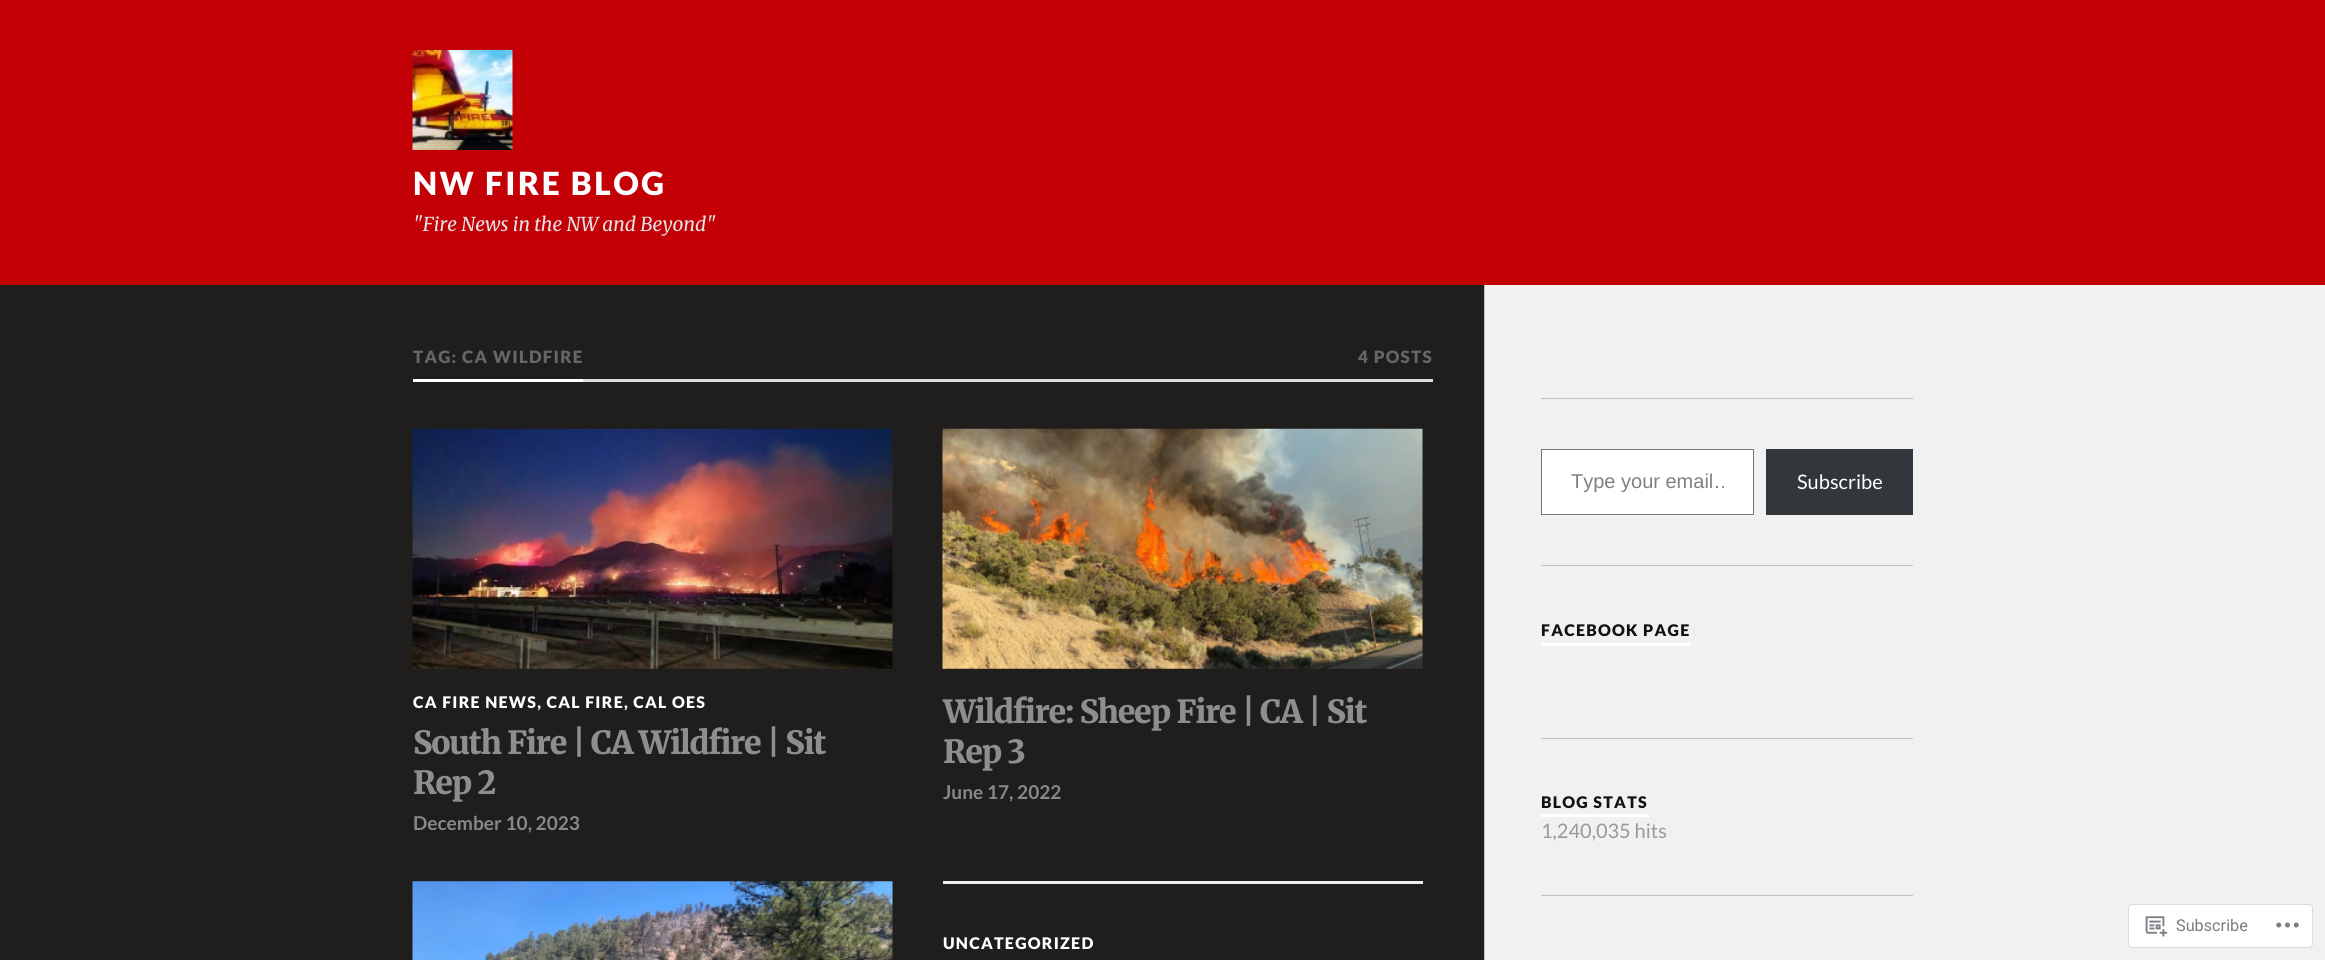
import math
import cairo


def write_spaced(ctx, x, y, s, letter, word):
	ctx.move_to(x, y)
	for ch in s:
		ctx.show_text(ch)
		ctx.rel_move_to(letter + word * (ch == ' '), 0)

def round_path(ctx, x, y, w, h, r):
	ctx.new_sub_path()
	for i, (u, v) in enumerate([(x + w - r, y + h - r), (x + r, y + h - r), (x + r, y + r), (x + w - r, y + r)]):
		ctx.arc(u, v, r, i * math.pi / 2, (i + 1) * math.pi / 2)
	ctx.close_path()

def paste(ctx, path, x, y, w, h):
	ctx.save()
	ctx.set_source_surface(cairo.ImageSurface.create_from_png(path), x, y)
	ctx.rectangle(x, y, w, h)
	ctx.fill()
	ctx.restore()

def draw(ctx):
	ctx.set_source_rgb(0.945, 0.945, 0.945)
	ctx.paint()
	ctx.set_source_rgb(0.761, 0, 0.02)
	ctx.rectangle(0, 0, 2325, 285)
	ctx.fill()
	paste(ctx, 'media/1.png', 412, 50, 101, 100)
	ctx.select_font_face('Lato Black')
	ctx.set_font_size(31.9)
	ctx.set_source_rgb(1, 1, 1)
	write_spaced(ctx, 413, 195, 'NW FIRE BLOG', 2.5, 0)
	ctx.select_font_face('Merriweather Light', cairo.FONT_SLANT_ITALIC)
	ctx.set_font_size(19.1)
	ctx.set_source_rgb(0.898, 0.898, 0.898)
	ctx.move_to(413, 231)
	ctx.show_text('"Fire News in the NW and Beyond"')
	ctx.set_source_rgb(0.122, 0.118, 0.114)
	ctx.rectangle(0, 285, 1484, 675)
	ctx.fill()
	ctx.set_source_rgb(0.867, 0.867, 0.867)
	ctx.rectangle(583, 379, 850, 3)
	ctx.fill()
	ctx.set_source_rgb(1, 1, 1)
	ctx.rectangle(413, 379, 170, 3)
	ctx.fill()
	ctx.select_font_face('Lato Black')
	ctx.set_font_size(17)
	ctx.set_source_rgb(0.4, 0.4, 0.4)
	write_spaced(ctx, 413, 363, 'TAG: CA WILDFIRE', 1.25, 0)
	write_spaced(ctx, 1358, 363, '4 POSTS', 1.25, 0)
	ctx.set_source_rgb(0.133, 0.133, 0.133)
	ctx.rectangle(413, 429, 480, 240)
	ctx.fill()
	paste(ctx, 'media/2.png', 412, 428, 481, 241)
	ctx.set_font_size(16)
	ctx.set_source_rgb(1, 1, 1)
	write_spaced(ctx, 413, 708, 'CA FIRE NEWS, CAL FIRE, CAL OES', 1.25, 0)
	ctx.select_font_face('Merriweather Black')
	ctx.set_font_size(31.9)
	ctx.set_source_rgb(0.557, 0.557, 0.557)
	write_spaced(ctx, 413, 754, 'South Fire | CA Wildfire | Sit', -1.25, 0)
	write_spaced(ctx, 413, 794, 'Rep 2', -1.25, 0)
	ctx.select_font_face('Lato', cairo.FONT_SLANT_NORMAL, cairo.FONT_WEIGHT_BOLD)
	ctx.set_font_size(19.1)
	ctx.set_source_rgb(0.533, 0.533, 0.533)
	ctx.move_to(413, 830)
	ctx.show_text('December 10, 2023')
	ctx.set_source_rgb(0.133, 0.133, 0.133)
	ctx.rectangle(943, 429, 480, 240)
	ctx.fill()
	paste(ctx, 'media/3.png', 942, 428, 481, 241)
	ctx.select_font_face('Merriweather Black')
	ctx.set_font_size(31.9)
	ctx.set_source_rgb(0.557, 0.557, 0.557)
	write_spaced(ctx, 943, 723, 'Wildfire: Sheep Fire | CA | Sit', -1.25, 0)
	write_spaced(ctx, 943, 763, 'Rep 3', -1.25, 0)
	ctx.select_font_face('Lato', cairo.FONT_SLANT_NORMAL, cairo.FONT_WEIGHT_BOLD)
	ctx.set_font_size(19.1)
	ctx.set_source_rgb(0.533, 0.533, 0.533)
	ctx.move_to(943, 799)
	ctx.show_text('June 17, 2022')
	ctx.set_source_rgb(0.133, 0.133, 0.133)
	ctx.rectangle(413, 881, 480, 79)
	ctx.fill()
	paste(ctx, 'media/4.png', 412, 881, 481, 79)
	ctx.set_source_rgb(0.933, 0.933, 0.933)
	ctx.rectangle(943, 881, 480, 3)
	ctx.fill()
	ctx.select_font_face('Lato Black')
	ctx.set_font_size(16)
	ctx.set_source_rgb(1, 1, 1)
	write_spaced(ctx, 943, 949, 'UNCATEGORIZED', 1.25, 0)
	ctx.set_source_rgb(0.757, 0.757, 0.757)
	ctx.rectangle(1484, 285, 1, 675)
	ctx.fill()
	ctx.rectangle(1541, 398, 372, 1)
	ctx.fill()
	ctx.set_source_rgb(1, 1, 1)
	ctx.rectangle(1541.5, 449.5, 212, 65)
	ctx.fill_preserve()
	ctx.set_source_rgb(0.463, 0.463, 0.463)
	ctx.set_line_width(1)
	ctx.stroke()
	ctx.save()
	ctx.rectangle(1571, 470, 153, 23)
	ctx.clip()
	ctx.select_font_face('Liberation Sans')
	ctx.set_font_size(20)
	ctx.set_source_rgb(0.502, 0.502, 0.502)
	ctx.move_to(1571, 488)
	ctx.show_text('Type your email…')
	ctx.restore()
	ctx.set_source_rgb(0.196, 0.216, 0.235)
	ctx.rectangle(1766, 449, 147, 66)
	ctx.fill()
	ctx.select_font_face('Lato')
	ctx.set_font_size(20)
	ctx.set_source_rgb(1, 1, 1)
	ctx.move_to(1797, 489)
	ctx.show_text('Subscribe')
	ctx.set_source_rgb(0.757, 0.757, 0.757)
	ctx.rectangle(1541, 565, 372, 1)
	ctx.fill()
	ctx.set_source_rgb(1, 1, 1)
	ctx.rectangle(1541, 643, 150, 3)
	ctx.fill()
	ctx.select_font_face('Lato Black')
	ctx.set_font_size(16)
	ctx.set_source_rgb(0.067, 0.067, 0.067)
	write_spaced(ctx, 1541, 636, 'FACEBOOK PAGE', 1.25, 0)
	ctx.set_source_rgb(0.757, 0.757, 0.757)
	ctx.rectangle(1541, 738, 372, 1)
	ctx.fill()
	ctx.set_source_rgb(1, 1, 1)
	ctx.rectangle(1541, 814, 108, 3)
	ctx.fill()
	ctx.set_source_rgb(0.067, 0.067, 0.067)
	write_spaced(ctx, 1541, 808, 'BLOG STATS', 1.25, 0)
	ctx.select_font_face('Lato')
	ctx.set_font_size(20)
	ctx.set_source_rgb(0.6, 0.6, 0.6)
	ctx.move_to(1541, 838)
	ctx.show_text('1,240,035 hits')
	ctx.set_source_rgb(0.757, 0.757, 0.757)
	ctx.rectangle(1541, 895, 372, 1)
	ctx.fill()
	ctx.set_source_rgb(1, 1, 1)
	round_path(ctx, 2128.5, 904.5, 184, 43, 3.5)
	ctx.fill_preserve()
	ctx.set_source_rgb(0.863, 0.863, 0.871)
	ctx.stroke()
	paste(ctx, 'media/5.png', 2145, 916, 23, 21)
	ctx.select_font_face('Roboto')
	ctx.set_font_size(16.25)
	ctx.set_source_rgb(0.478, 0.494, 0.518)
	ctx.move_to(2176, 931)
	ctx.show_text('Subscribe')
	paste(ctx, 'media/6.png', 2276, 922, 23, 6)


surface = cairo.ImageSurface(cairo.FORMAT_RGB24, 2325, 960)
ctx = cairo.Context(surface)
options = cairo.FontOptions()
options.set_hint_metrics(cairo.HINT_METRICS_OFF)
options.set_hint_style(cairo.HINT_STYLE_NONE)
ctx.set_font_options(options)
ctx.set_miter_limit(4)
draw(ctx)
surface.write_to_png('image.png')
